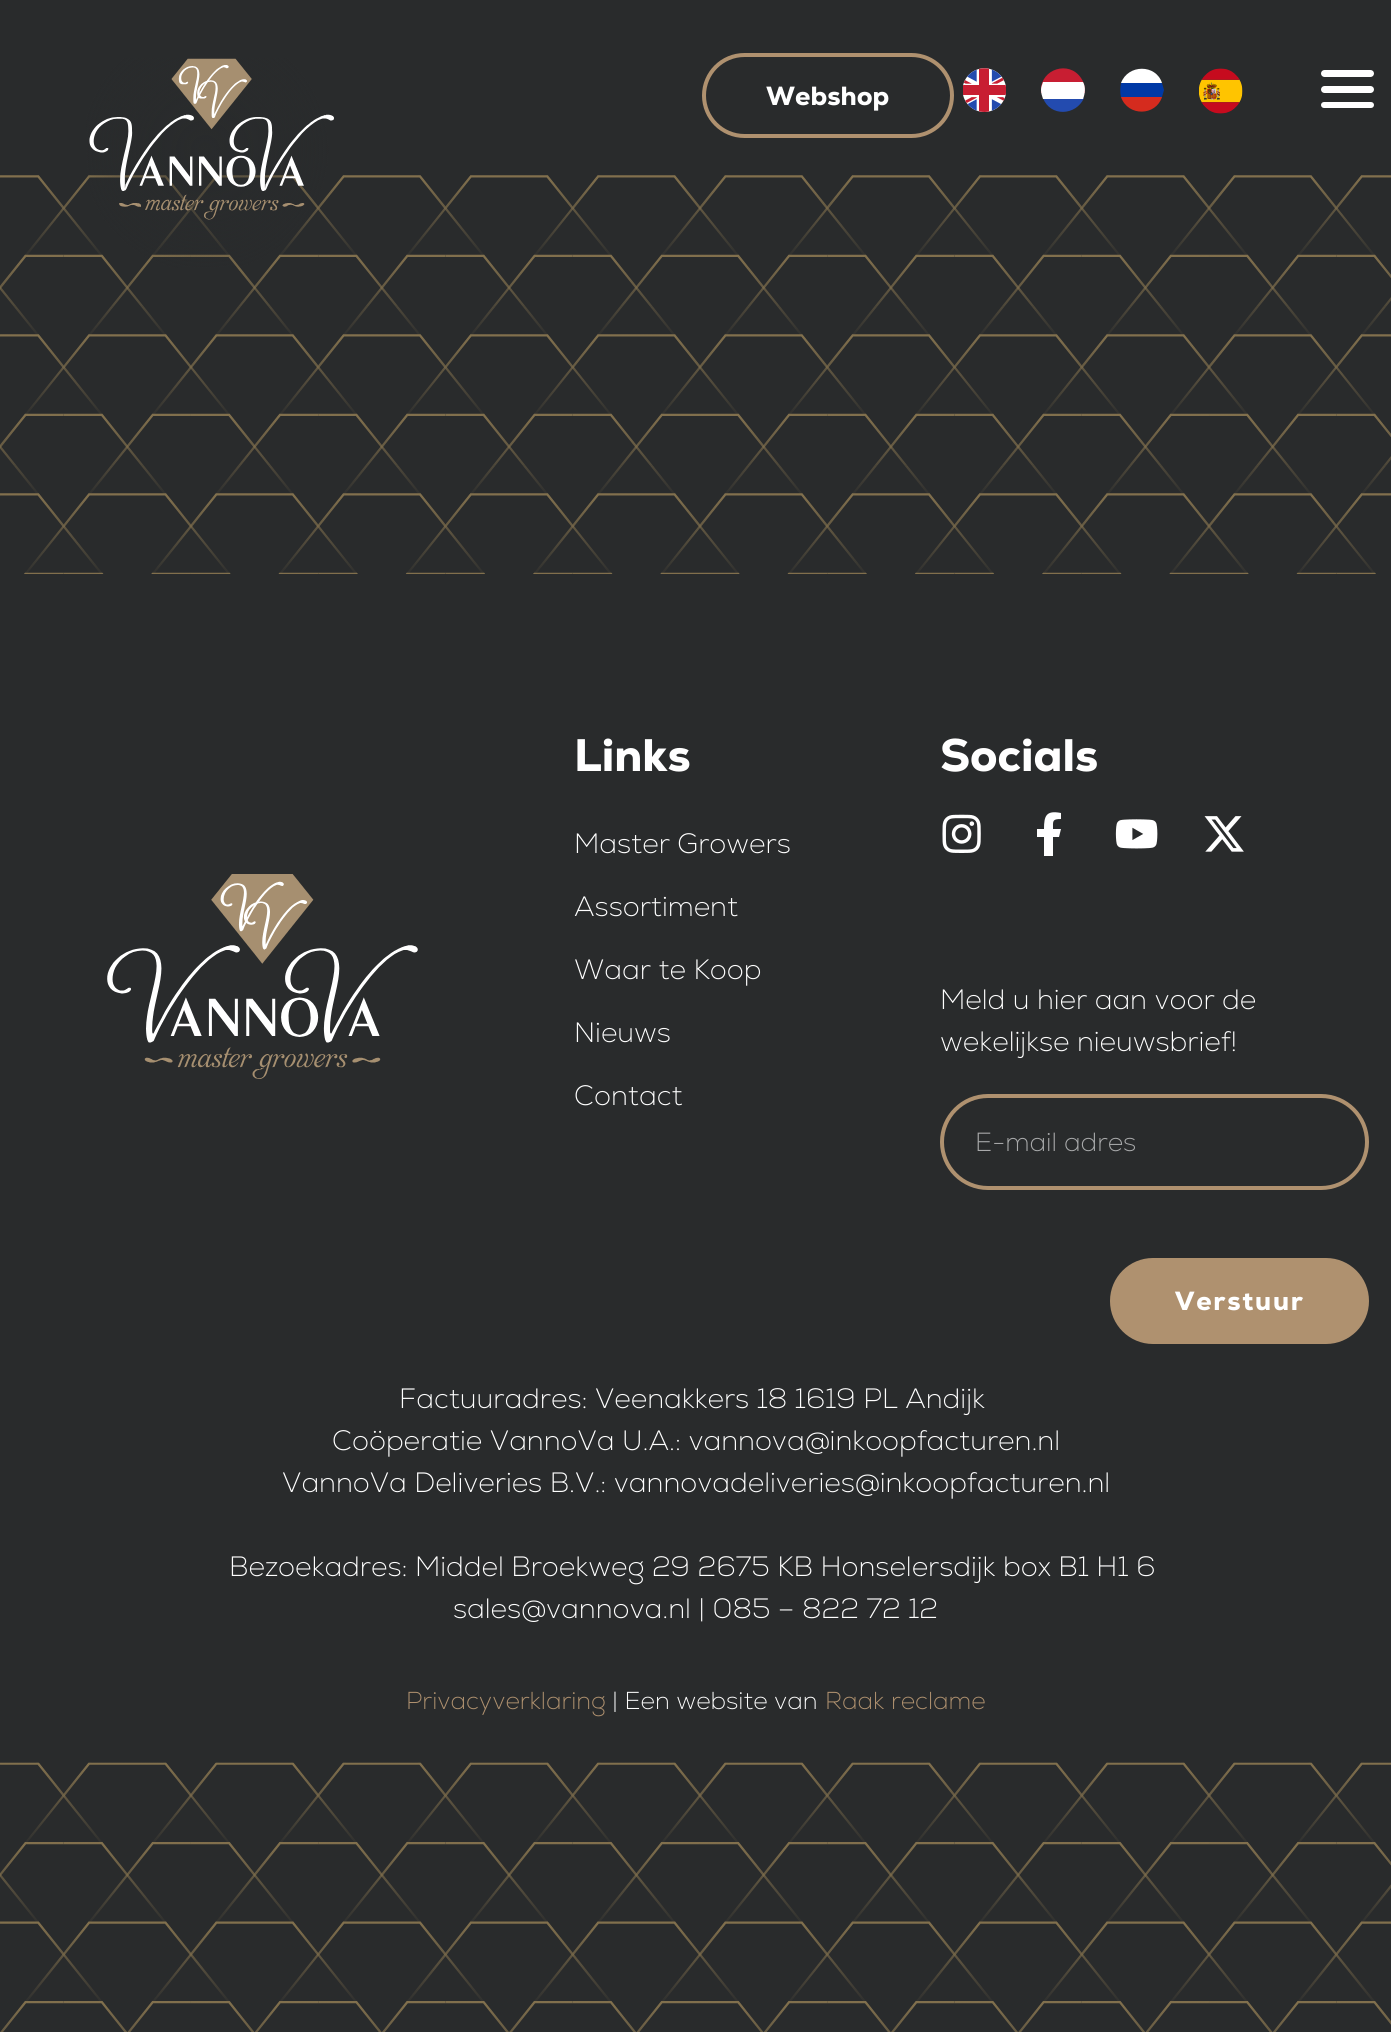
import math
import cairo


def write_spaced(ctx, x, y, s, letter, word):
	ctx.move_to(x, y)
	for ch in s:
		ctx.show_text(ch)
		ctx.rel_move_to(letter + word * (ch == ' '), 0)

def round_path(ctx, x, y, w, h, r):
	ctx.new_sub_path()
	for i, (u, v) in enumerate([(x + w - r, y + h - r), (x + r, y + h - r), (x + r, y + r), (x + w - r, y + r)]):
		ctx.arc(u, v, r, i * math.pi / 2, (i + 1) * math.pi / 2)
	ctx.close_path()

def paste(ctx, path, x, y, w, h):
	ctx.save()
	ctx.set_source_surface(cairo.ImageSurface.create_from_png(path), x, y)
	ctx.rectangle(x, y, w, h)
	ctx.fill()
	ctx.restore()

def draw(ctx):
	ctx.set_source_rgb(0.161, 0.169, 0.173)
	ctx.paint()
	paste(ctx, 'media/1.png', 0, 175, 1391, 399)
	paste(ctx, 'media/2.png', 86, 58, 248, 210)
	round_path(ctx, 704, 55, 248, 81, 40.5)
	ctx.set_source_rgb(0.686, 0.569, 0.435)
	ctx.set_line_width(4)
	ctx.stroke()
	ctx.select_font_face('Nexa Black')
	ctx.set_font_size(26.25)
	ctx.set_source_rgb(1, 1, 1)
	ctx.move_to(766, 105)
	ctx.show_text('Webshop')
	paste(ctx, 'media/3.png', 963, 68, 43, 44)
	ctx.set_source_rgb(0.784, 0.118, 0.196)
	ctx.new_path()
	ctx.move_to(1041, 90)
	ctx.curve_to(1041, 69, 1069, 60, 1081, 78)
	ctx.curve_to(1084, 82, 1085, 88, 1085, 93)
	ctx.line_to(1041, 93)
	ctx.close_path()
	ctx.fill()
	ctx.set_source_rgb(0.137, 0.294, 0.686)
	ctx.new_path()
	ctx.move_to(1084, 98)
	ctx.line_to(1043, 98)
	ctx.curve_to(1050, 117, 1076, 116, 1084, 98)
	ctx.close_path()
	ctx.fill()
	ctx.set_source_rgb(1, 1, 1)
	ctx.new_path()
	ctx.move_to(1041, 90)
	ctx.curve_to(1041, 87, 1042, 85, 1043, 82)
	ctx.line_to(1083, 82)
	ctx.curve_to(1086, 87, 1085, 94, 1083, 99)
	ctx.line_to(1043, 99)
	ctx.curve_to(1042, 96, 1041, 93, 1041, 90)
	ctx.close_path()
	ctx.fill()
	ctx.set_source_rgb(0, 0.224, 0.651)
	ctx.new_path()
	ctx.move_to(1164, 90)
	ctx.line_to(1162, 97)
	ctx.line_to(1121, 97)
	ctx.curve_to(1120, 93, 1120, 88, 1121, 83)
	ctx.line_to(1162, 83)
	ctx.close_path()
	ctx.fill()
	ctx.set_source_rgb(1, 1, 1)
	ctx.new_path()
	ctx.move_to(1162, 83)
	ctx.line_to(1121, 83)
	ctx.curve_to(1128, 64, 1156, 64, 1162, 83)
	ctx.close_path()
	ctx.fill()
	ctx.set_source_rgb(0.835, 0.169, 0.118)
	ctx.new_path()
	ctx.move_to(1162, 97)
	ctx.curve_to(1156, 116, 1128, 117, 1121, 97)
	ctx.close_path()
	ctx.fill()
	paste(ctx, 'media/4.png', 1199, 68, 44, 46)
	ctx.set_source_rgb(1, 1, 1)
	round_path(ctx, 1321, 70, 53, 7, 3.5)
	ctx.fill()
	round_path(ctx, 1321, 86, 53, 7, 3.5)
	ctx.fill()
	round_path(ctx, 1321, 102, 53, 6, 3)
	ctx.fill()
	paste(ctx, 'media/5.png', 107, 874, 311, 205)
	ctx.set_font_size(45.5)
	ctx.move_to(574, 771)
	ctx.show_text('Links')
	ctx.select_font_face('Nexa ExtraLight')
	ctx.set_font_size(28)
	for x, y, s in [
		(574, 853, 'Master Growers'),
		(574, 916, 'Assortiment'),
		(574, 979, 'Waar te Koop'),
		(574, 1042, 'Nieuws'),
		(574, 1105, 'Contact'),
	]:
		ctx.move_to(x, y)
		ctx.show_text(s)
	ctx.select_font_face('Nexa Black')
	ctx.set_font_size(45.5)
	ctx.move_to(940, 771)
	ctx.show_text('Socials')
	paste(ctx, 'media/6.png', 942, 814, 39, 39)
	ctx.new_path()
	ctx.move_to(1059, 837)
	ctx.line_to(1061, 829)
	ctx.line_to(1053, 829)
	ctx.curve_to(1053, 821, 1052, 819, 1061, 819)
	ctx.line_to(1061, 813)
	ctx.curve_to(1046, 810, 1044, 816, 1044, 829)
	ctx.line_to(1037, 829)
	ctx.line_to(1037, 837)
	ctx.line_to(1044, 837)
	ctx.line_to(1044, 856)
	ctx.line_to(1053, 856)
	ctx.line_to(1053, 837)
	ctx.close_path()
	ctx.fill()
	paste(ctx, 'media/7.png', 1115, 819, 43, 30)
	paste(ctx, 'media/8.png', 1204, 816, 40, 36)
	ctx.select_font_face('Nexa ExtraLight')
	ctx.set_font_size(28)
	ctx.move_to(940, 1009)
	ctx.show_text('Meld u hier aan voor de')
	ctx.move_to(940, 1051)
	ctx.show_text('wekelijkse nieuwsbrief!')
	round_path(ctx, 942, 1096, 425, 92, 46)
	ctx.set_source_rgb(0.686, 0.569, 0.435)
	ctx.stroke()
	ctx.set_font_size(26.25)
	ctx.set_source_rgb(0.663, 0.667, 0.671)
	ctx.move_to(975, 1151)
	ctx.show_text('E-mail adres')
	ctx.set_source_rgb(0.686, 0.569, 0.435)
	round_path(ctx, 1112, 1260, 255, 82, 41)
	ctx.fill_preserve()
	ctx.stroke()
	ctx.select_font_face('Nexa Black')
	ctx.set_source_rgb(1, 1, 1)
	write_spaced(ctx, 1175, 1310, 'Verstuur', 1.75, 0)
	ctx.select_font_face('Nexa ExtraLight')
	ctx.set_font_size(28)
	for x, y, s in [
		(399, 1408, 'Factuuradres: Veenakkers 18 1619 PL Andijk'),
		(332, 1450, 'Coöperatie VannoVa U.A.: vannova@inkoopfacturen.nl'),
		(282, 1492, 'VannoVa Deliveries B.V.: vannovadeliveries@inkoopfacturen.nl'),
		(229, 1576, 'Bezoekadres: Middel Broekweg 29 2675 KB Honselersdijk box B1 H1 6'),
		(453, 1618, 'sales@vannova.nl | 085 – 822 72 12'),
	]:
		ctx.move_to(x, y)
		ctx.show_text(s)
	ctx.set_font_size(24.5)
	ctx.set_source_rgb(0.686, 0.569, 0.435)
	ctx.move_to(406, 1709)
	ctx.show_text('Privacyverklaring')
	ctx.set_source_rgb(1, 1, 1)
	ctx.move_to(612, 1709)
	ctx.show_text('| Een website van')
	ctx.set_source_rgb(0.686, 0.569, 0.435)
	ctx.move_to(825, 1709)
	ctx.show_text('Raak reclame')
	paste(ctx, 'media/9.png', 0, 1762, 1391, 270)


surface = cairo.ImageSurface(cairo.FORMAT_RGB24, 1391, 2032)
ctx = cairo.Context(surface)
options = cairo.FontOptions()
options.set_hint_metrics(cairo.HINT_METRICS_OFF)
options.set_hint_style(cairo.HINT_STYLE_NONE)
ctx.set_font_options(options)
ctx.set_miter_limit(4)
draw(ctx)
surface.write_to_png('image.png')
